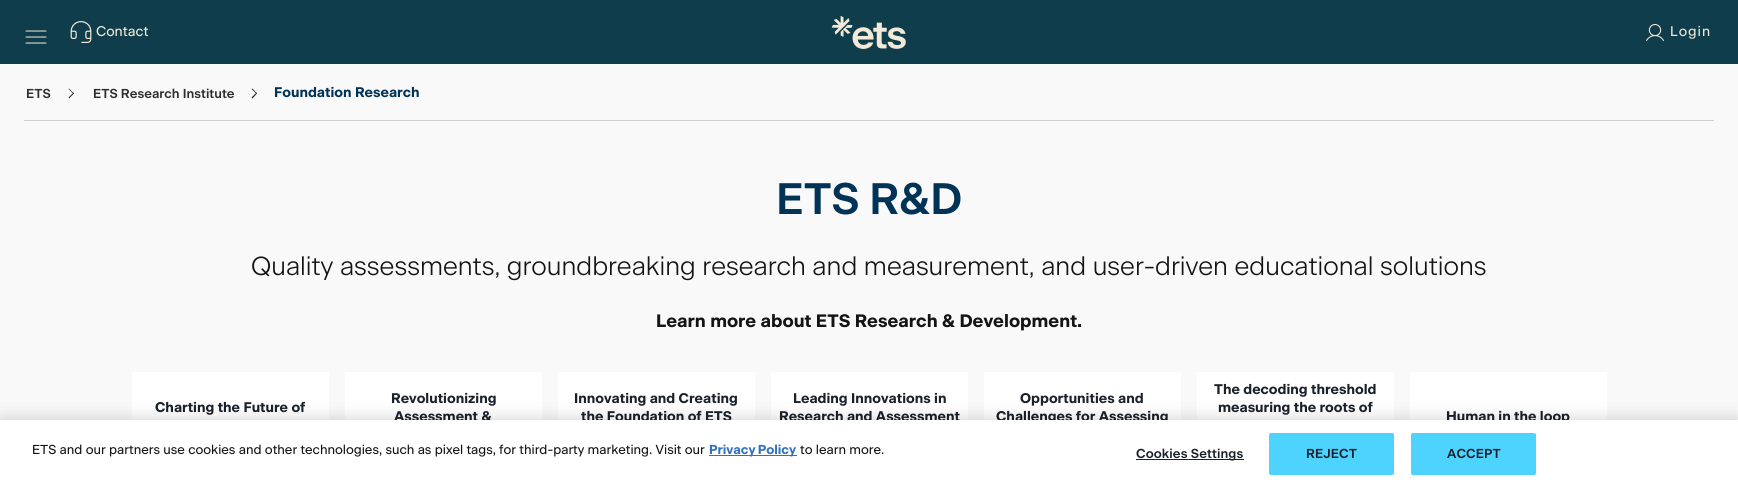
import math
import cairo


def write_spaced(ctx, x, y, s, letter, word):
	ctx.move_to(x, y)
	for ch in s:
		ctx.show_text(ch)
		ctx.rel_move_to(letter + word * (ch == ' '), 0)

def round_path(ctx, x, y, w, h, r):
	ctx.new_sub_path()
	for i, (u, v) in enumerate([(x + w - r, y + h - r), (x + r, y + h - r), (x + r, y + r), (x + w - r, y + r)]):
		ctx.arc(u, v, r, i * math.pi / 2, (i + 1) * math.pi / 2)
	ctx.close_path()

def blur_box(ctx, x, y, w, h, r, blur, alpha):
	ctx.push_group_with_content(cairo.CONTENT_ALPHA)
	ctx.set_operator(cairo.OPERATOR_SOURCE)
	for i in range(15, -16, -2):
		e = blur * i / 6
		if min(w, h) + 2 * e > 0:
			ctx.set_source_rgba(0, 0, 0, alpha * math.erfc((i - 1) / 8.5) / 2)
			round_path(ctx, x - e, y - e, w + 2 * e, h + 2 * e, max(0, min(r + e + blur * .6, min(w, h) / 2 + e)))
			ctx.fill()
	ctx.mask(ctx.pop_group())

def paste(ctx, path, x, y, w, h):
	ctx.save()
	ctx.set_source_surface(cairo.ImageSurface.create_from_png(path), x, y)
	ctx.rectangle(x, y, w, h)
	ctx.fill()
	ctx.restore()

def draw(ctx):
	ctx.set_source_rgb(0.973, 0.973, 0.973)
	ctx.paint()
	ctx.set_source_rgb(0.063, 0.239, 0.294)
	ctx.rectangle(0, 0, 1738, 64)
	ctx.fill()
	paste(ctx, 'media/1.png', 25, 30, 22, 14)
	paste(ctx, 'media/2.png', 70, 21, 22, 22)
	ctx.select_font_face('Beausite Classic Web')
	ctx.set_font_size(14)
	ctx.set_source_rgb(0.949, 0.914, 0.847)
	ctx.move_to(96, 36)
	ctx.show_text('Contact')
	paste(ctx, 'media/3.png', 831, 16, 75, 33)
	paste(ctx, 'media/4.png', 1646, 24, 18, 17)
	write_spaced(ctx, 1670, 36, 'Login', 1, 0)
	ctx.set_source_rgb(0.816, 0.816, 0.816)
	ctx.rectangle(24, 120, 1690, 1)
	ctx.fill()
	ctx.select_font_face('Beausite Classic Web SemiBold')
	ctx.set_font_size(13)
	ctx.set_source_rgb(0.18, 0.18, 0.18)
	ctx.move_to(26, 98)
	ctx.show_text('ETS')
	ctx.new_path()
	ctx.move_to(68.5, 89)
	ctx.line_to(69, 88.5)
	ctx.line_to(74, 93.5)
	ctx.line_to(73.5, 94)
	ctx.close_path()
	ctx.fill()
	ctx.new_path()
	ctx.move_to(68.5, 97.5)
	ctx.line_to(73.5, 92.5)
	ctx.line_to(74, 93.5)
	ctx.line_to(69, 98.5)
	ctx.close_path()
	ctx.fill()
	ctx.move_to(93, 98)
	ctx.show_text('ETS Research Institute')
	ctx.new_path()
	ctx.move_to(251.5, 89)
	ctx.line_to(252.5, 88.5)
	ctx.line_to(257, 93.5)
	ctx.line_to(256.5, 94)
	ctx.close_path()
	ctx.fill()
	ctx.new_path()
	ctx.move_to(251.5, 97.5)
	ctx.line_to(256.5, 92.5)
	ctx.line_to(257, 93.5)
	ctx.line_to(252.5, 98.5)
	ctx.close_path()
	ctx.fill()
	ctx.select_font_face('Beausite Classic Web', cairo.FONT_SLANT_NORMAL, cairo.FONT_WEIGHT_BOLD)
	ctx.set_font_size(14)
	ctx.set_source_rgb(0, 0.2, 0.337)
	ctx.move_to(274, 97)
	ctx.show_text('Foundation Research')
	ctx.select_font_face('Beausite Classic Web SemiBold')
	ctx.set_font_size(44)
	write_spaced(ctx, 776, 214, 'ETS R&D', 0, -1)
	ctx.select_font_face('Beausite Classic Web Light')
	ctx.set_font_size(26)
	ctx.set_source_rgb(0.082, 0.082, 0.082)
	write_spaced(ctx, 251, 275, 'Quality assessments, groundbreaking research and measurement, and user-driven educational solutions', 0, -0.25)
	ctx.select_font_face('Beausite Classic Web', cairo.FONT_SLANT_NORMAL, cairo.FONT_WEIGHT_BOLD)
	ctx.set_font_size(18)
	ctx.move_to(656, 327)
	ctx.show_text('Learn more about ETS Research & Development.')
	ctx.set_source_rgb(1, 1, 1)
	ctx.rectangle(132, 372, 197, 48)
	ctx.fill()
	ctx.set_font_size(14)
	ctx.set_source_rgb(0.102, 0.129, 0.169)
	ctx.move_to(155, 412)
	ctx.show_text('Charting the Future of')
	ctx.set_source_rgb(1, 1, 1)
	ctx.rectangle(345, 372, 197, 48)
	ctx.fill()
	ctx.set_source_rgb(0.102, 0.129, 0.169)
	ctx.move_to(391, 403)
	ctx.show_text('Revolutionizing')
	ctx.move_to(394, 421)
	ctx.show_text('Assessment &')
	ctx.set_source_rgb(1, 1, 1)
	ctx.rectangle(558, 372, 197, 48)
	ctx.fill()
	ctx.set_source_rgb(0.102, 0.129, 0.169)
	ctx.move_to(574, 403)
	ctx.show_text('Innovating and Creating')
	ctx.move_to(581, 421)
	ctx.show_text('the Foundation of ETS')
	ctx.set_source_rgb(1, 1, 1)
	ctx.rectangle(771, 372, 197, 48)
	ctx.fill()
	ctx.set_source_rgb(0.102, 0.129, 0.169)
	ctx.move_to(793, 403)
	ctx.show_text('Leading Innovations in')
	ctx.move_to(779, 421)
	ctx.show_text('Research and Assessment')
	ctx.set_source_rgb(1, 1, 1)
	ctx.rectangle(984, 372, 197, 48)
	ctx.fill()
	ctx.set_source_rgb(0.102, 0.129, 0.169)
	ctx.move_to(1020, 403)
	ctx.show_text('Opportunities and')
	ctx.move_to(996, 421)
	ctx.show_text('Challenges for Assessing')
	ctx.set_source_rgb(1, 1, 1)
	ctx.rectangle(1197, 372, 197, 48)
	ctx.fill()
	ctx.set_source_rgb(0.102, 0.129, 0.169)
	ctx.move_to(1214, 394)
	ctx.show_text('The decoding threshold')
	ctx.move_to(1218, 412)
	ctx.show_text('measuring the roots of')
	ctx.set_source_rgb(1, 1, 1)
	ctx.rectangle(1410, 372, 197, 48)
	ctx.fill()
	ctx.set_source_rgb(0.102, 0.129, 0.169)
	ctx.move_to(1446, 421)
	ctx.show_text('Human in the loop')
	ctx.set_source_rgb(0, 0, 0)
	blur_box(ctx, 0, 420, 1738, 71, 0, 9, 0.2)
	ctx.set_source_rgb(1, 1, 1)
	ctx.rectangle(0, 420, 1738, 71)
	ctx.fill()
	ctx.select_font_face('Beausite Classic Web')
	ctx.set_font_size(13)
	ctx.set_source_rgb(0.082, 0.082, 0.082)
	ctx.move_to(32, 454)
	ctx.show_text('ETS and our partners use cookies and other technologies, such as pixel tags,')
	ctx.move_to(499, 454)
	ctx.show_text('for third-party marketing. Visit our')
	ctx.set_source_rgb(0.188, 0.447, 0.745)
	ctx.rectangle(709, 455, 88, 1)
	ctx.fill()
	ctx.select_font_face('Beausite Classic Web', cairo.FONT_SLANT_NORMAL, cairo.FONT_WEIGHT_BOLD)
	write_spaced(ctx, 709, 454, 'Privacy Policy', 0, -1)
	ctx.select_font_face('Beausite Classic Web')
	ctx.set_source_rgb(0.082, 0.082, 0.082)
	ctx.move_to(800, 454)
	ctx.show_text('to learn more.')
	ctx.set_source_rgb(0.102, 0.129, 0.169)
	ctx.rectangle(1136, 459, 108, 1)
	ctx.fill()
	ctx.select_font_face('Beausite Classic Web SemiBold')
	write_spaced(ctx, 1136, 458, 'Cookies Settings', 0.1, 0)
	ctx.set_source_rgb(0.302, 0.827, 0.996)
	round_path(ctx, 1269.5, 433.5, 124, 41, 1.5)
	ctx.fill_preserve()
	ctx.set_line_width(1)
	ctx.stroke()
	ctx.set_source_rgb(0.102, 0.129, 0.169)
	write_spaced(ctx, 1306, 458, 'REJECT', 0.1, 0)
	ctx.set_source_rgb(0.302, 0.827, 0.996)
	round_path(ctx, 1411.5, 433.5, 124, 41, 1.5)
	ctx.fill_preserve()
	ctx.stroke()
	ctx.set_source_rgb(0.102, 0.129, 0.169)
	write_spaced(ctx, 1447, 458, 'ACCEPT', 0.1, 0)


surface = cairo.ImageSurface(cairo.FORMAT_RGB24, 1738, 491)
ctx = cairo.Context(surface)
options = cairo.FontOptions()
options.set_hint_metrics(cairo.HINT_METRICS_OFF)
options.set_hint_style(cairo.HINT_STYLE_NONE)
ctx.set_font_options(options)
ctx.set_miter_limit(4)
draw(ctx)
surface.write_to_png('image.png')
